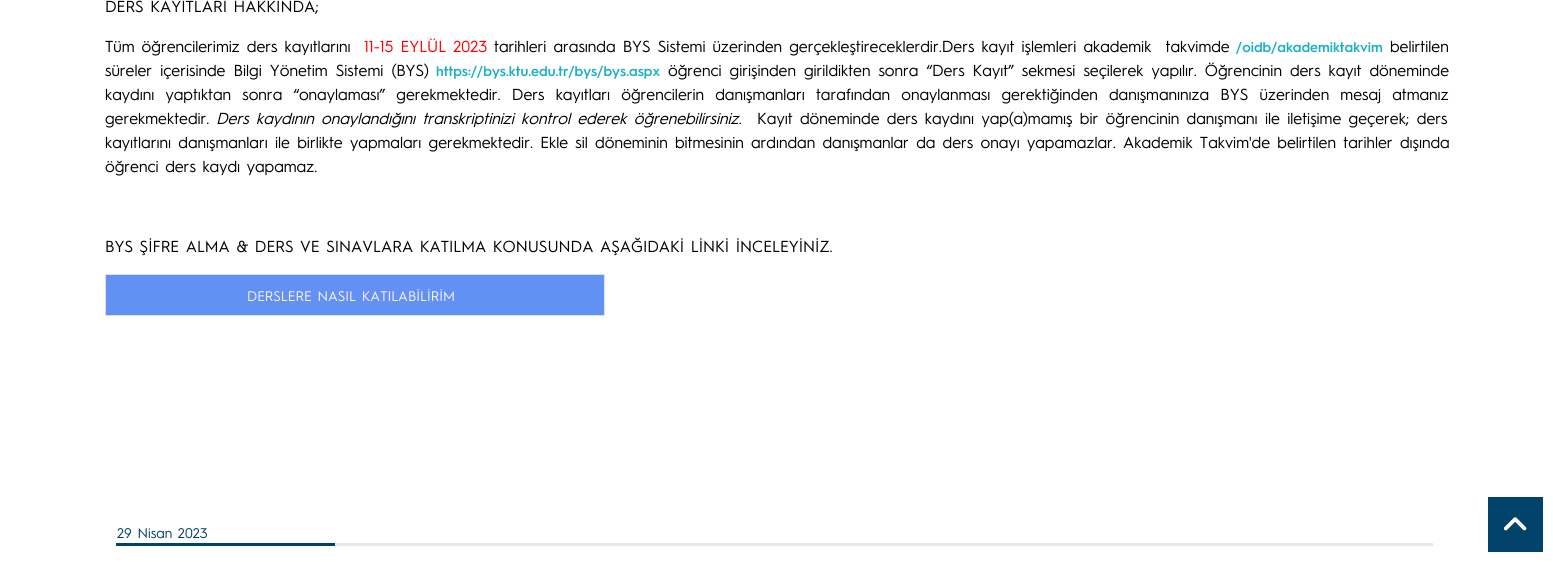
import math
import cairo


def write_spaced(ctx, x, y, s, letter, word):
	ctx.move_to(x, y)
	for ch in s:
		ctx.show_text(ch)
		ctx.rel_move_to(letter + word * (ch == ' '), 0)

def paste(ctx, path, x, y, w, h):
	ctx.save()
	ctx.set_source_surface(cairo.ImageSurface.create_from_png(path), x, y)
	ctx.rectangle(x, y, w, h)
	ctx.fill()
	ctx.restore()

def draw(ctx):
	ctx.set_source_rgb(1, 1, 1)
	ctx.paint()
	ctx.select_font_face('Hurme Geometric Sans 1')
	ctx.set_font_size(16)
	ctx.set_source_rgb(0, 0, 0)
	ctx.move_to(105, 12)
	ctx.show_text('DERS KAYITLARI HAKKINDA;')
	write_spaced(ctx, 105, 52, 'Tüm öğrencilerimiz ders kayıtlarını', 0, 0.5)
	ctx.set_source_rgb(1, 0, 0)
	write_spaced(ctx, 364, 52, '11-15 EYLÜL 2023', 0, 0.5)
	ctx.set_source_rgb(0, 0, 0)
	write_spaced(ctx, 494, 52, 'tarihleri arasında BYS Sistemi üzerinden gerçekleştireceklerdir.Ders kayıt işlemleri akademik  takvimde', 0, 0.5)
	ctx.select_font_face('Hurme Geometric Sans 1 SemiBold')
	ctx.set_font_size(14)
	ctx.set_source_rgb(0.118, 0.686, 0.78)
	ctx.move_to(1236, 52)
	ctx.show_text('/oidb/akademiktakvim')
	ctx.select_font_face('Hurme Geometric Sans 1')
	ctx.set_font_size(16)
	ctx.set_source_rgb(0, 0, 0)
	ctx.move_to(1390, 52)
	ctx.show_text('belirtilen')
	write_spaced(ctx, 105, 76, 'süreler içerisinde Bilgi Yönetim Sistemi (BYS)', 0, 1.5)
	ctx.select_font_face('Hurme Geometric Sans 1 SemiBold')
	ctx.set_font_size(14)
	ctx.set_source_rgb(0.118, 0.686, 0.78)
	ctx.move_to(436, 76)
	ctx.show_text('https://bys.ktu.edu.tr/bys/bys.aspx')
	ctx.select_font_face('Hurme Geometric Sans 1')
	ctx.set_font_size(16)
	ctx.set_source_rgb(0, 0, 0)
	write_spaced(ctx, 668, 76, 'öğrenci girişinden girildikten sonra “Ders Kayıt” sekmesi seçilerek yapılır. Öğrencinin ders kayıt döneminde', 0, 1.4)
	write_spaced(ctx, 105, 100, 'kaydını yaptıktan sonra “onaylaması” gerekmektedir. Ders kayıtları öğrencilerin danışmanları tarafından onaylanması gerektiğinden danışmanınıza BYS üzerinden mesaj atmanız', 0, 4.6)
	ctx.move_to(105, 124)
	ctx.show_text('gerekmektedir.')
	ctx.select_font_face('Hurme Geometric Sans 1', cairo.FONT_SLANT_ITALIC)
	write_spaced(ctx, 216, 124, 'Ders kaydının onaylandığını transkriptinizi kontrol ederek öğrenebilirsiniz.', 0, 0.75)
	ctx.select_font_face('Hurme Geometric Sans 1')
	write_spaced(ctx, 757, 124, 'Kayıt döneminde ders kaydını yap(a)mamış bir öğrencinin danışmanı ile iletişime geçerek; ders', 0, 0.75)
	write_spaced(ctx, 105, 148, 'kayıtlarını danışmanları ile birlikte yapmaları gerekmektedir. Ekle sil döneminin bitmesinin ardından danışmanlar da ders onayı yapamazlar. Akademik Takvim\'de belirtilen tarihler dışında', 0, 0.7)
	ctx.move_to(105, 172)
	ctx.show_text('öğrenci ders kaydı yapamaz.')
	ctx.move_to(105, 252)
	ctx.show_text('BYS ŞİFRE ALMA & DERS VE SINAVLARA KATILMA KONUSUNDA AŞAĞIDAKİ LİNKİ İNCELEYİNİZ.')
	ctx.set_source_rgb(0.871, 0.886, 0.902)
	ctx.rectangle(105, 274, 500, 1)
	ctx.rectangle(604, 274, 1, 42)
	ctx.rectangle(105, 315, 500, 1)
	ctx.rectangle(105, 274, 1, 42)
	ctx.fill()
	ctx.set_source_rgb(0.4, 0.6, 1)
	ctx.rectangle(603, 275, 1, 40)
	ctx.fill()
	ctx.set_source_rgb(0.38, 0.569, 0.949)
	ctx.rectangle(106, 275, 497, 40)
	ctx.fill()
	ctx.set_font_size(14)
	ctx.set_source_rgb(1, 0.941, 0.961)
	ctx.move_to(247, 301)
	ctx.show_text('DERSLERE NASIL KATILABİLİRİM')
	ctx.set_source_rgb(0, 0.259, 0.416)
	ctx.move_to(117, 538)
	ctx.show_text('29 Nisan 2023')
	ctx.rectangle(116, 543, 219, 3)
	ctx.fill()
	ctx.set_source_rgb(0.902, 0.906, 0.91)
	ctx.rectangle(335, 543, 1098, 3)
	ctx.fill()
	ctx.set_source_rgb(0, 0.259, 0.416)
	ctx.rectangle(1488, 497, 55, 55)
	ctx.fill()
	paste(ctx, 'media/1.png', 1503, 517, 24, 14)


surface = cairo.ImageSurface(cairo.FORMAT_RGB24, 1553, 562)
ctx = cairo.Context(surface)
options = cairo.FontOptions()
options.set_hint_metrics(cairo.HINT_METRICS_OFF)
options.set_hint_style(cairo.HINT_STYLE_NONE)
ctx.set_font_options(options)
ctx.set_miter_limit(4)
draw(ctx)
surface.write_to_png('image.png')
